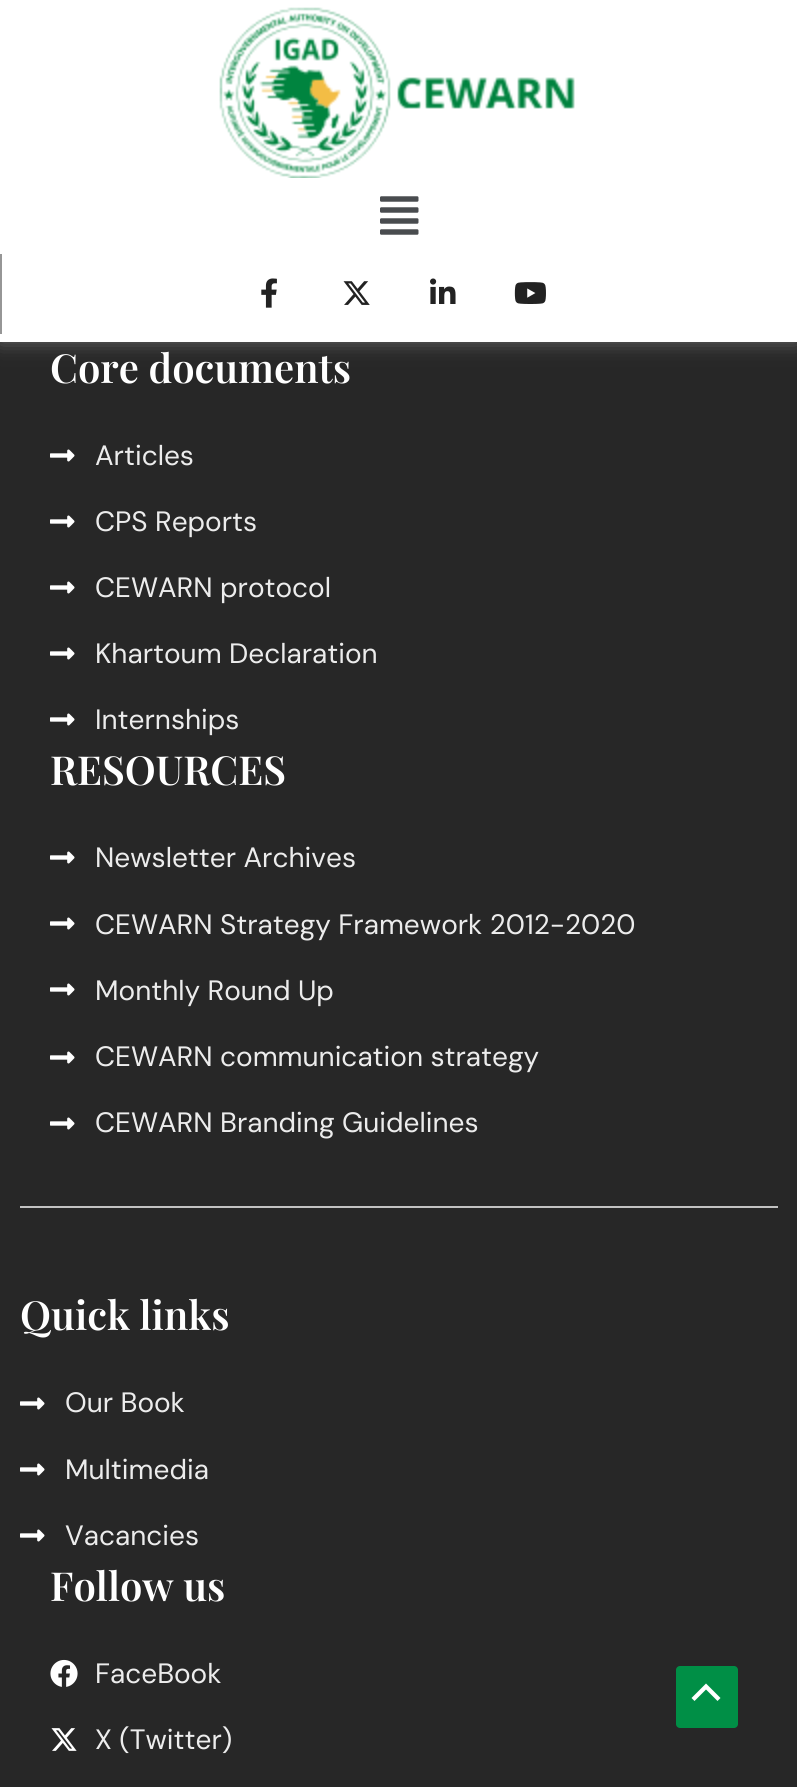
import math
import cairo


def round_path(ctx, x, y, w, h, r):
	ctx.new_sub_path()
	for i, (u, v) in enumerate([(x + w - r, y + h - r), (x + r, y + h - r), (x + r, y + r), (x + w - r, y + r)]):
		ctx.arc(u, v, r, i * math.pi / 2, (i + 1) * math.pi / 2)
	ctx.close_path()

def blur_box(ctx, x, y, w, h, r, blur, alpha):
	ctx.push_group_with_content(cairo.CONTENT_ALPHA)
	ctx.set_operator(cairo.OPERATOR_SOURCE)
	for i in range(15, -16, -2):
		e = blur * i / 6
		if min(w, h) + 2 * e > 0:
			ctx.set_source_rgba(0, 0, 0, alpha * math.erfc((i - 1) / 8.5) / 2)
			round_path(ctx, x - e, y - e, w + 2 * e, h + 2 * e, max(0, min(r + e + blur * .6, min(w, h) / 2 + e)))
			ctx.fill()
	ctx.mask(ctx.pop_group())

def paste(ctx, path, x, y, w, h):
	ctx.save()
	ctx.set_source_surface(cairo.ImageSurface.create_from_png(path), x, y)
	ctx.rectangle(x, y, w, h)
	ctx.fill()
	ctx.restore()

def draw(ctx):
	ctx.set_source_rgb(0.153, 0.153, 0.153)
	ctx.paint()
	ctx.set_source_rgb(0.667, 0.667, 0.667)
	blur_box(ctx, 0, 0, 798, 342, 0, 10, 0.5)
	ctx.set_source_rgb(1, 1, 1)
	ctx.rectangle(0, 0, 797, 342)
	ctx.fill()
	paste(ctx, 'media/1.png', 219, 7, 356, 171)
	paste(ctx, 'media/2.png', 380, 196, 39, 39)
	ctx.set_source_rgb(0.588, 0.588, 0.588)
	ctx.rectangle(0, 254, 2, 80)
	ctx.fill()
	paste(ctx, 'media/3.png', 261, 278, 16, 30)
	paste(ctx, 'media/4.png', 343, 281, 27, 24)
	paste(ctx, 'media/5.png', 430, 278, 26, 26)
	paste(ctx, 'media/6.png', 514, 282, 32, 22)
	ctx.select_font_face('Playfair Display SemiBold')
	ctx.set_font_size(40)
	ctx.set_source_rgb(1, 1, 1)
	ctx.move_to(50, 383)
	ctx.show_text('Core documents')
	paste(ctx, 'media/7.png', 50, 449, 25, 13)
	ctx.select_font_face('DM Sans')
	ctx.set_font_size(28)
	ctx.set_source_rgb(0.925, 0.925, 0.925)
	ctx.move_to(95, 465)
	ctx.show_text('Articles')
	paste(ctx, 'media/7.png', 50, 515, 25, 13)
	ctx.move_to(95, 531)
	ctx.show_text('CPS Reports')
	paste(ctx, 'media/7.png', 50, 581, 25, 13)
	ctx.move_to(95, 597)
	ctx.show_text('CEWARN protocol')
	paste(ctx, 'media/7.png', 50, 647, 25, 13)
	ctx.move_to(95, 663)
	ctx.show_text('Khartoum Declaration')
	paste(ctx, 'media/7.png', 50, 713, 25, 13)
	ctx.move_to(95, 729)
	ctx.show_text('Internships')
	ctx.select_font_face('Playfair Display SemiBold')
	ctx.set_font_size(40)
	ctx.set_source_rgb(1, 1, 1)
	ctx.move_to(50, 785)
	ctx.show_text('RESOURCES')
	paste(ctx, 'media/7.png', 50, 851, 25, 13)
	ctx.select_font_face('DM Sans')
	ctx.set_font_size(28)
	ctx.set_source_rgb(0.925, 0.925, 0.925)
	ctx.move_to(95, 867)
	ctx.show_text('Newsletter Archives')
	paste(ctx, 'media/7.png', 50, 917, 25, 13)
	ctx.move_to(95, 934)
	ctx.show_text('CEWARN Strategy Framework 2012-2020')
	paste(ctx, 'media/7.png', 50, 983, 25, 13)
	ctx.move_to(95, 1000)
	ctx.show_text('Monthly Round Up')
	paste(ctx, 'media/7.png', 50, 1051, 25, 13)
	ctx.move_to(95, 1066)
	ctx.show_text('CEWARN communication strategy')
	paste(ctx, 'media/7.png', 50, 1117, 25, 13)
	ctx.move_to(95, 1132)
	ctx.show_text('CEWARN Branding Guidelines')
	ctx.set_source_rgb(0.761, 0.761, 0.761)
	ctx.rectangle(20, 1206, 758, 2)
	ctx.fill()
	ctx.select_font_face('Playfair Display SemiBold')
	ctx.set_font_size(40)
	ctx.set_source_rgb(1, 1, 1)
	ctx.move_to(20, 1330)
	ctx.show_text('Quick links')
	paste(ctx, 'media/7.png', 20, 1397, 25, 13)
	ctx.select_font_face('DM Sans')
	ctx.set_font_size(28)
	ctx.set_source_rgb(0.925, 0.925, 0.925)
	ctx.move_to(65, 1412)
	ctx.show_text('Our Book')
	paste(ctx, 'media/7.png', 20, 1463, 25, 13)
	ctx.move_to(65, 1479)
	ctx.show_text('Multimedia')
	paste(ctx, 'media/7.png', 20, 1529, 25, 13)
	ctx.move_to(65, 1545)
	ctx.show_text('Vacancies')
	ctx.select_font_face('Playfair Display SemiBold')
	ctx.set_font_size(40)
	ctx.set_source_rgb(1, 1, 1)
	ctx.move_to(50, 1601)
	ctx.show_text('Follow us')
	paste(ctx, 'media/8.png', 50, 1659, 28, 28)
	ctx.select_font_face('DM Sans')
	ctx.set_font_size(28)
	ctx.set_source_rgb(0.925, 0.925, 0.925)
	ctx.move_to(95, 1683)
	ctx.show_text('FaceBook')
	paste(ctx, 'media/9.png', 51, 1728, 26, 23)
	ctx.move_to(95, 1749)
	ctx.show_text('X (Twitter)')
	ctx.set_source_rgb(0, 0.561, 0.275)
	round_path(ctx, 676, 1666, 62, 62, 4)
	ctx.fill()
	ctx.set_source_rgb(1, 1, 1)
	ctx.new_path()
	ctx.move_to(720.5, 1698)
	ctx.line_to(706, 1683.5)
	ctx.line_to(691.5, 1698)
	ctx.line_to(694.5, 1701)
	ctx.line_to(706, 1689.5)
	ctx.line_to(717.5, 1701)
	ctx.close_path()
	ctx.fill()


surface = cairo.ImageSurface(cairo.FORMAT_RGB24, 797, 1787)
ctx = cairo.Context(surface)
options = cairo.FontOptions()
options.set_hint_metrics(cairo.HINT_METRICS_OFF)
options.set_hint_style(cairo.HINT_STYLE_NONE)
ctx.set_font_options(options)
ctx.set_miter_limit(4)
draw(ctx)
surface.write_to_png('image.png')
